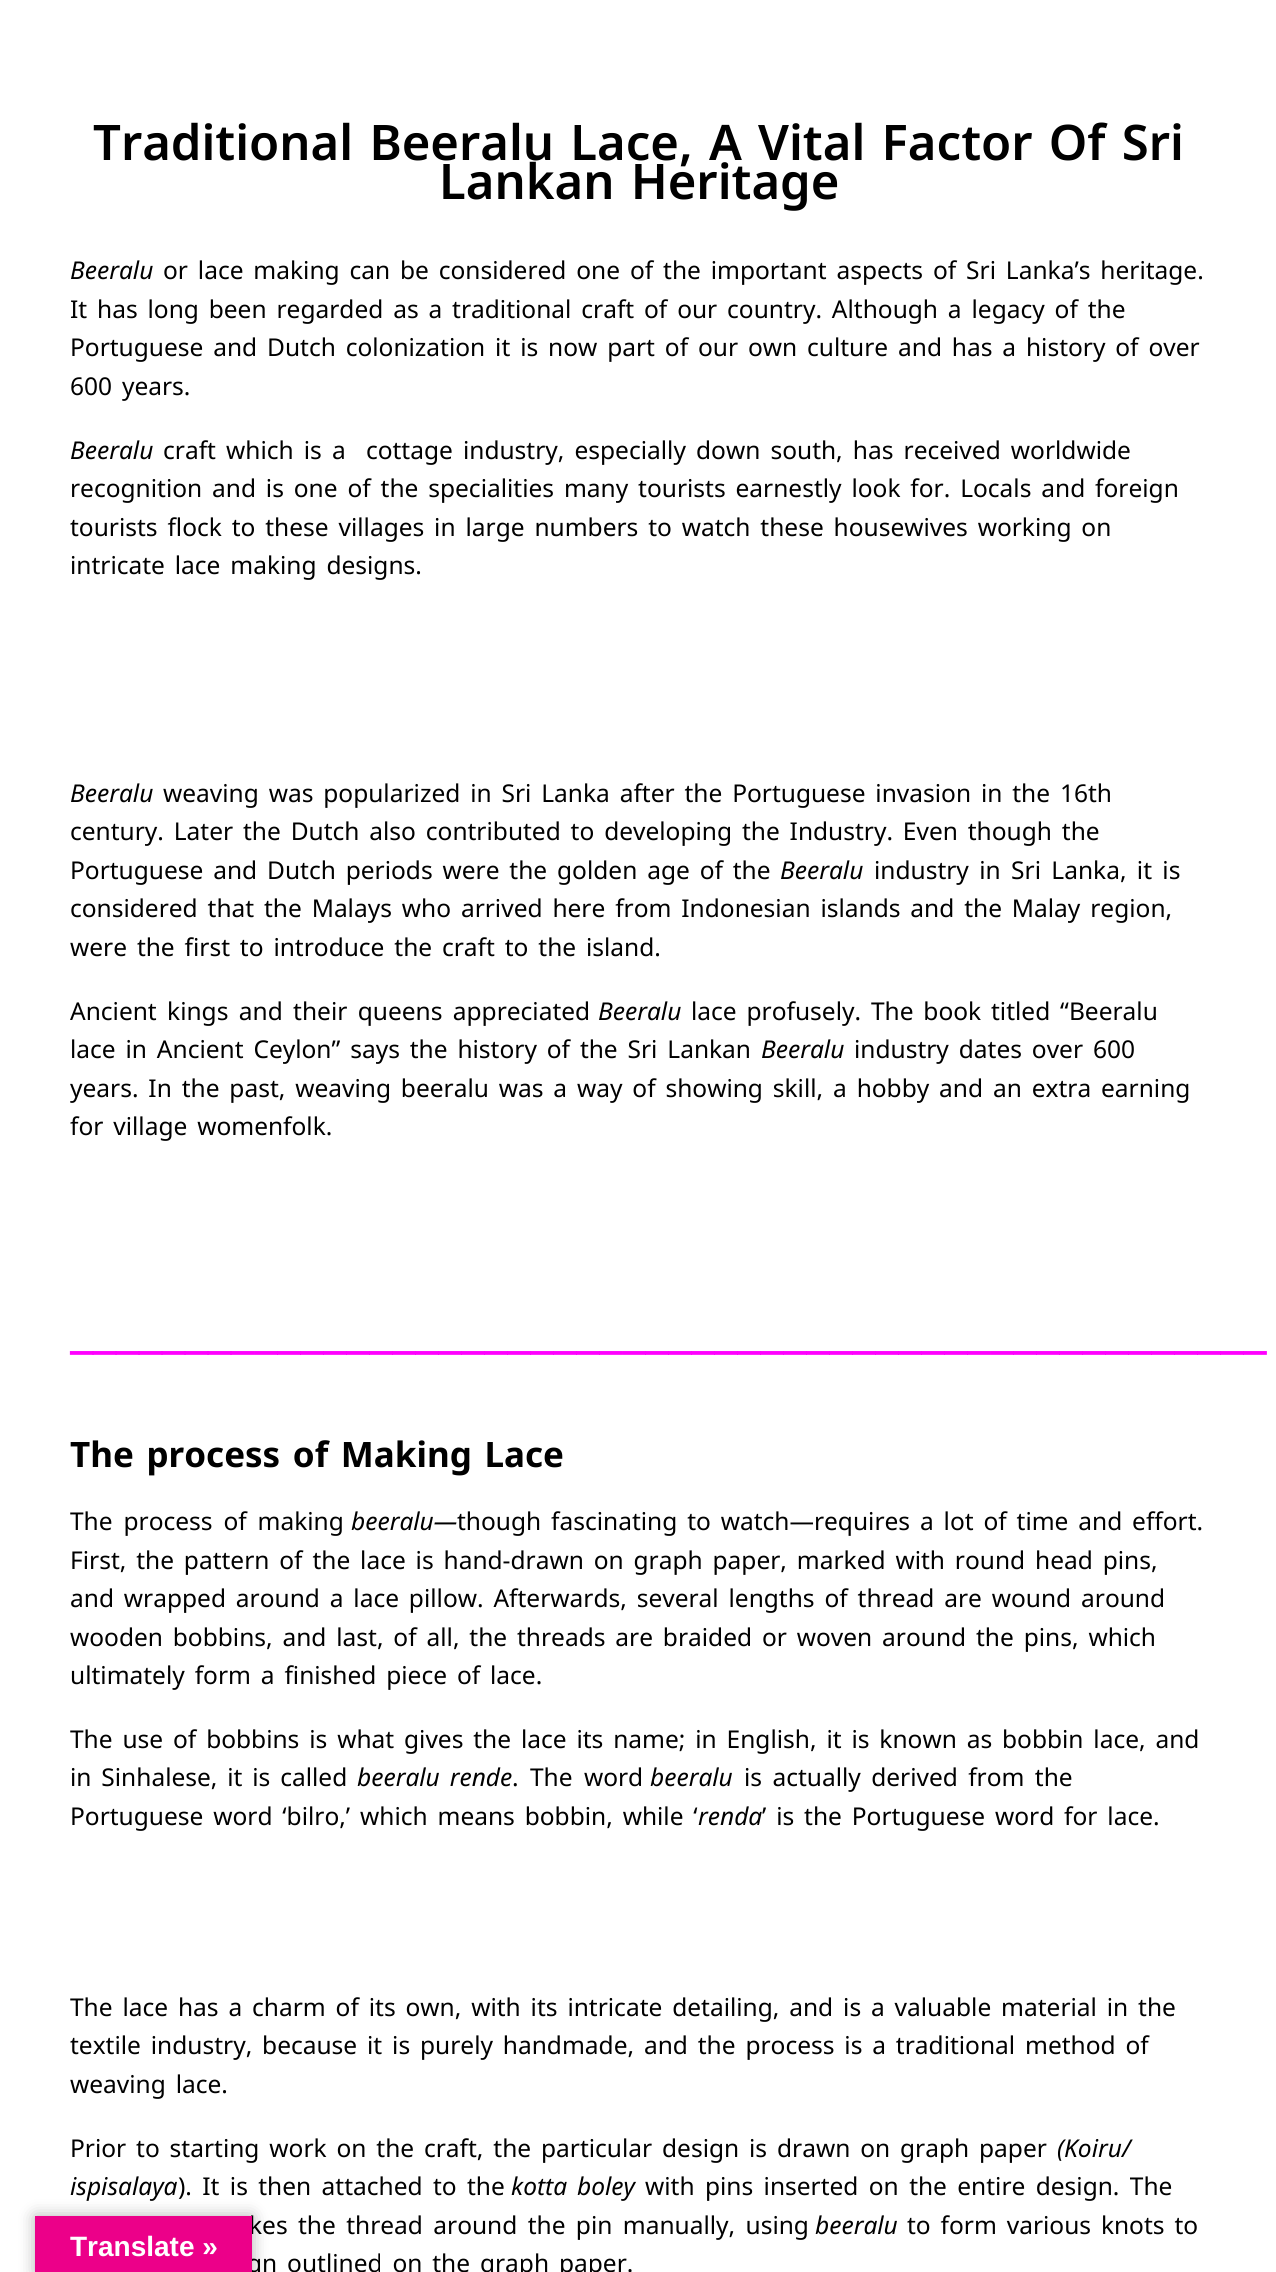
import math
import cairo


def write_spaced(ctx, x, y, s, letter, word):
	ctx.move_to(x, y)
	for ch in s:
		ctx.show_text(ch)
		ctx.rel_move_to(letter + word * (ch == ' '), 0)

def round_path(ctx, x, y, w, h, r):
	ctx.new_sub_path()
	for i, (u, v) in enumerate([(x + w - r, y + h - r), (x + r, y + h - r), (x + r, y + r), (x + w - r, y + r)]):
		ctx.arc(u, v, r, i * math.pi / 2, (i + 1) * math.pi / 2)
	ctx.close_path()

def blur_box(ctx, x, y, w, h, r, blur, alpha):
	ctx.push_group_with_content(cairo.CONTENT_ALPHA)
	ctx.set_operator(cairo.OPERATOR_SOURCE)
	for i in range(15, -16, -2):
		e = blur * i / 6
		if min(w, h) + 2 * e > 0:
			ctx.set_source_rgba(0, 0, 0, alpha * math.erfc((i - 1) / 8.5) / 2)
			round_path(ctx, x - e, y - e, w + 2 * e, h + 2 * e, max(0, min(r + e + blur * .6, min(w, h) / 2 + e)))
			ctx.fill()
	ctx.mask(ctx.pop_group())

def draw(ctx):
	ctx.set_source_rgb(1, 1, 1)
	ctx.paint()
	ctx.select_font_face('Noto Sans SemiBold')
	ctx.set_font_size(49)
	ctx.set_source_rgb(0, 0, 0)
	write_spaced(ctx, 93, 160, 'Traditional Beeralu Lace, A Vital Factor Of Sri', 0, 3.5)
	write_spaced(ctx, 439, 199, 'Lankan Heritage', 0, 3.5)
	ctx.select_font_face('Noto Sans', cairo.FONT_SLANT_ITALIC)
	ctx.set_font_size(24.5)
	ctx.move_to(70, 279)
	ctx.show_text('Beeralu')
	ctx.select_font_face('Noto Sans')
	for x, y, s in [
		(163, 279, 'or lace making can be considered one of the important aspects of Sri Lanka’s heritage.'),
		(70, 318, 'It has long been regarded as a traditional craft of our country. Although a legacy of the'),
		(70, 356, 'Portuguese and Dutch colonization it is now part of our own culture and has a history of over'),
		(70, 395, '600 years.'),
	]:
		write_spaced(ctx, x, y, s, 0, 3.5)
	ctx.select_font_face('Noto Sans', cairo.FONT_SLANT_ITALIC)
	ctx.move_to(70, 459)
	ctx.show_text('Beeralu')
	ctx.select_font_face('Noto Sans')
	write_spaced(ctx, 163, 459, 'craft which is a  cottage industry, especially down south, has received worldwide', 0, 3.75)
	for x, y, s in [
		(70, 497, 'recognition and is one of the specialities many tourists earnestly look for. Locals and foreign'),
		(70, 536, 'tourists flock to these villages in large numbers to watch these housewives working on'),
		(70, 574, 'intricate lace making designs.'),
	]:
		write_spaced(ctx, x, y, s, 0, 3.5)
	ctx.select_font_face('Noto Sans', cairo.FONT_SLANT_ITALIC)
	ctx.move_to(70, 802)
	ctx.show_text('Beeralu')
	ctx.select_font_face('Noto Sans')
	for x, y, s in [
		(163, 802, 'weaving was popularized in Sri Lanka after the Portuguese invasion in the 16th'),
		(70, 840, 'century. Later the Dutch also contributed to developing the Industry. Even though the'),
		(70, 879, 'Portuguese and Dutch periods were the golden age of the'),
	]:
		write_spaced(ctx, x, y, s, 0, 3.5)
	ctx.select_font_face('Noto Sans', cairo.FONT_SLANT_ITALIC)
	ctx.move_to(780, 879)
	ctx.show_text('Beeralu')
	ctx.select_font_face('Noto Sans')
	write_spaced(ctx, 874, 879, 'industry in Sri Lanka, it is', 0, 4)
	write_spaced(ctx, 70, 917, 'considered that the Malays who arrived here from Indonesian islands and the Malay region,', 0, 3.5)
	write_spaced(ctx, 70, 956, 'were the first to introduce the craft to the island.', 0, 3.5)
	write_spaced(ctx, 70, 1020, 'Ancient kings and their queens appreciated', 0, 4)
	ctx.select_font_face('Noto Sans', cairo.FONT_SLANT_ITALIC)
	ctx.move_to(598, 1020)
	ctx.show_text('Beeralu')
	ctx.select_font_face('Noto Sans')
	write_spaced(ctx, 691, 1020, 'lace profusely. The book titled “Beeralu', 0, 3.5)
	write_spaced(ctx, 70, 1058, 'lace in Ancient Ceylon” says the history of the Sri Lankan', 0, 3.5)
	ctx.select_font_face('Noto Sans', cairo.FONT_SLANT_ITALIC)
	ctx.move_to(761, 1058)
	ctx.show_text('Beeralu')
	ctx.select_font_face('Noto Sans')
	for x, y, s in [
		(854, 1058, 'industry dates over 600'),
		(70, 1097, 'years. In the past, weaving beeralu was a way of showing skill, a hobby and an extra earning'),
		(70, 1135, 'for village womenfolk.'),
	]:
		write_spaced(ctx, x, y, s, 0, 3.5)
	ctx.select_font_face('Noto Sans', cairo.FONT_SLANT_NORMAL, cairo.FONT_WEIGHT_BOLD)
	ctx.set_font_size(56)
	ctx.set_source_rgb(1, 0, 1)
	ctx.move_to(70, 1346)
	ctx.show_text('____________________________________________________')
	ctx.set_font_size(35)
	ctx.set_source_rgb(0, 0, 0)
	write_spaced(ctx, 70, 1467, 'The process of Making Lace', 0, 3.5)
	ctx.select_font_face('Noto Sans')
	ctx.set_font_size(24.5)
	write_spaced(ctx, 70, 1530, 'The process of making', 0, 4.5)
	ctx.select_font_face('Noto Sans', cairo.FONT_SLANT_ITALIC)
	ctx.move_to(351, 1530)
	ctx.show_text('beeralu—')
	ctx.select_font_face('Noto Sans')
	for x, y, s in [
		(457, 1530, 'though fascinating to watch—requires a lot of time and effort.'),
		(70, 1569, 'First, the pattern of the lace is hand-drawn on graph paper, marked with round head pins,'),
		(70, 1607, 'and wrapped around a lace pillow. Afterwards, several lengths of thread are wound around'),
		(70, 1646, 'wooden bobbins, and last, of all, the threads are braided or woven around the pins, which'),
		(70, 1684, 'ultimately form a finished piece of lace.'),
		(70, 1748, 'The use of bobbins is what gives the lace its name; in English, it is known as bobbin lace, and'),
		(70, 1786, 'in Sinhalese, it is called'),
	]:
		write_spaced(ctx, x, y, s, 0, 3.5)
	ctx.select_font_face('Noto Sans', cairo.FONT_SLANT_ITALIC)
	write_spaced(ctx, 357, 1786, 'beeralu rende', 0, 3.5)
	ctx.select_font_face('Noto Sans')
	write_spaced(ctx, 512, 1786, '. The word', 0, 5)
	ctx.select_font_face('Noto Sans', cairo.FONT_SLANT_ITALIC)
	ctx.move_to(650, 1786)
	ctx.show_text('beeralu')
	ctx.select_font_face('Noto Sans')
	write_spaced(ctx, 744, 1786, 'is actually derived from the', 0, 4)
	write_spaced(ctx, 70, 1825, 'Portuguese word ‘bilro,’ which means bobbin, while ‘', 0, 3.5)
	ctx.select_font_face('Noto Sans', cairo.FONT_SLANT_ITALIC)
	ctx.move_to(698, 1825)
	ctx.show_text('renda')
	ctx.select_font_face('Noto Sans')
	for x, y, s in [
		(762, 1825, '’ is the Portuguese word for lace.'),
		(70, 2016, 'The lace has a charm of its own, with its intricate detailing, and is a valuable material in the'),
		(70, 2054, 'textile industry, because it is purely handmade, and the process is a traditional method of'),
		(70, 2093, 'weaving lace.'),
		(70, 2157, 'Prior to starting work on the craft, the particular design is drawn on graph paper'),
	]:
		write_spaced(ctx, x, y, s, 0, 3.5)
	ctx.select_font_face('Noto Sans', cairo.FONT_SLANT_ITALIC)
	ctx.move_to(1057, 2157)
	ctx.show_text('(Koiru/')
	ctx.move_to(70, 2195)
	ctx.show_text('ispisalaya')
	ctx.select_font_face('Noto Sans')
	write_spaced(ctx, 178, 2195, '). It is then attached to the', 0, 4)
	ctx.select_font_face('Noto Sans', cairo.FONT_SLANT_ITALIC)
	write_spaced(ctx, 511, 2195, 'kotta boley', 0, 3.5)
	ctx.select_font_face('Noto Sans')
	write_spaced(ctx, 645, 2195, 'with pins inserted on the entire design. The', 0, 4)
	write_spaced(ctx, 249, 2234, 'kes the thread around the pin manually, using', 0, 4)
	ctx.select_font_face('Noto Sans', cairo.FONT_SLANT_ITALIC)
	ctx.move_to(815, 2234)
	ctx.show_text('beeralu')
	ctx.select_font_face('Noto Sans')
	write_spaced(ctx, 907, 2234, 'to form various knots to', 0, 3.5)
	write_spaced(ctx, 247, 2272, 'gn outlined on the graph paper.', 0, 3.5)
	ctx.set_source_rgb(0, 0, 0)
	blur_box(ctx, 35, 2216, 217, 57, 0, 8, 0.3)
	ctx.set_source_rgb(0.922, 0, 0.537)
	ctx.rectangle(35, 2216, 217, 56)
	ctx.fill()
	ctx.select_font_face('Liberation Sans', cairo.FONT_SLANT_NORMAL, cairo.FONT_WEIGHT_BOLD)
	ctx.set_font_size(28)
	ctx.set_source_rgb(1, 1, 1)
	ctx.move_to(70, 2256)
	ctx.show_text('Translate »')


surface = cairo.ImageSurface(cairo.FORMAT_RGB24, 1276, 2272)
ctx = cairo.Context(surface)
options = cairo.FontOptions()
options.set_hint_metrics(cairo.HINT_METRICS_OFF)
options.set_hint_style(cairo.HINT_STYLE_NONE)
ctx.set_font_options(options)
ctx.set_miter_limit(4)
draw(ctx)
surface.write_to_png('image.png')
